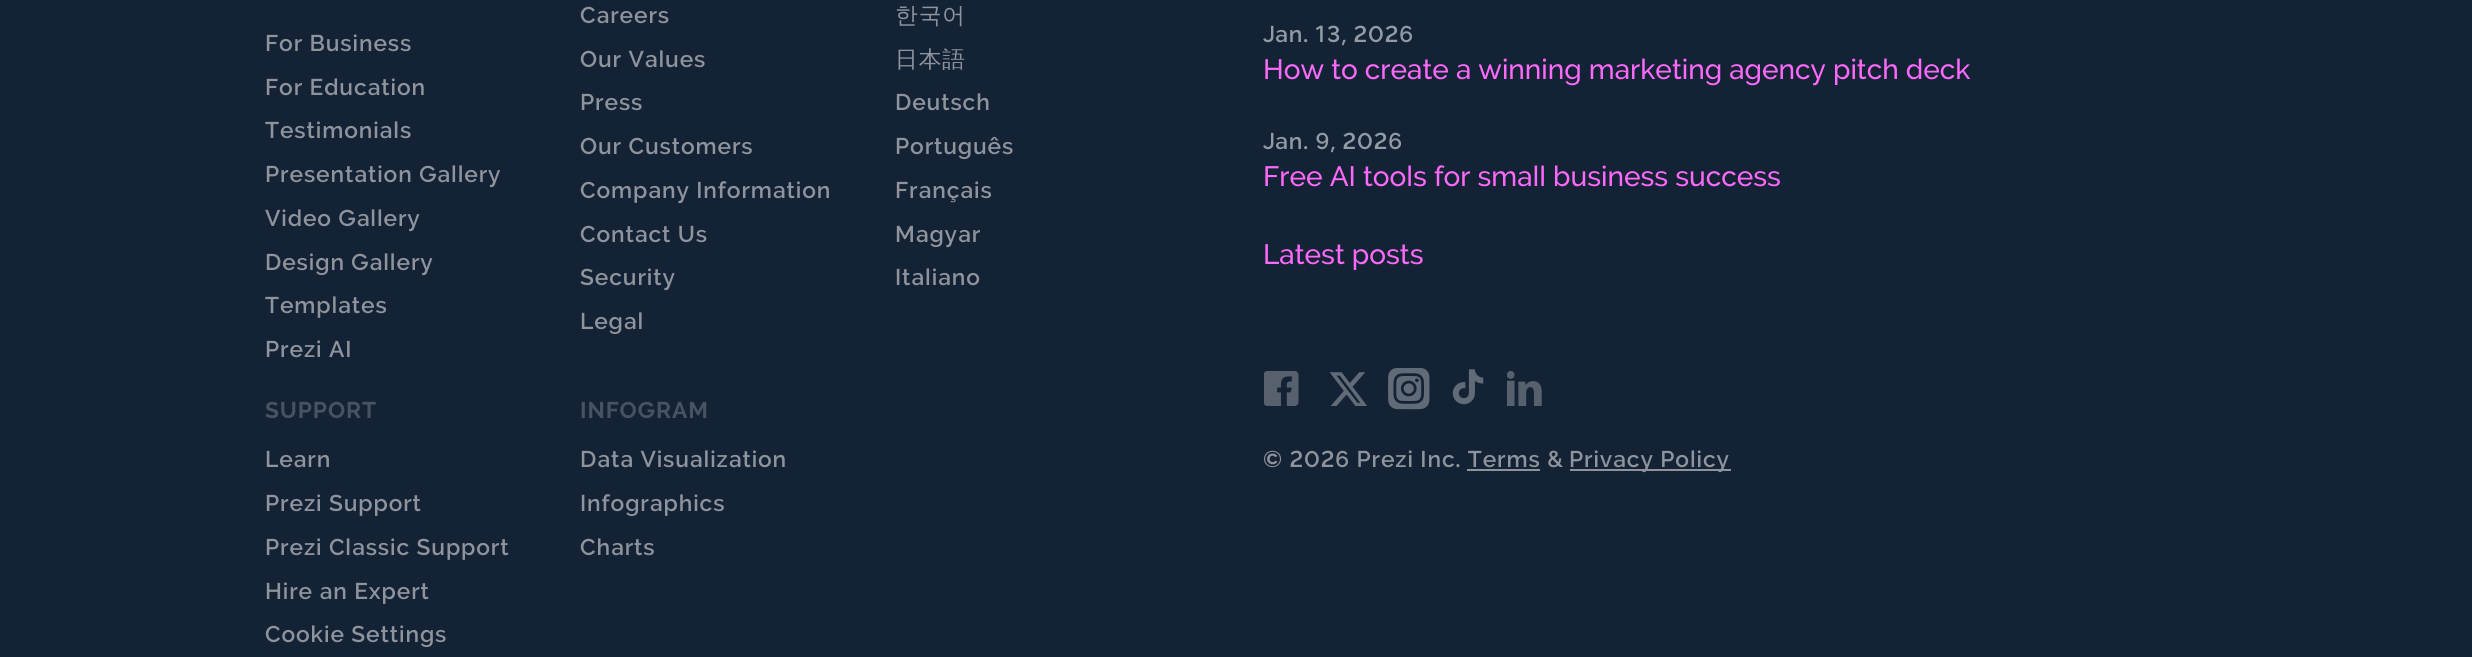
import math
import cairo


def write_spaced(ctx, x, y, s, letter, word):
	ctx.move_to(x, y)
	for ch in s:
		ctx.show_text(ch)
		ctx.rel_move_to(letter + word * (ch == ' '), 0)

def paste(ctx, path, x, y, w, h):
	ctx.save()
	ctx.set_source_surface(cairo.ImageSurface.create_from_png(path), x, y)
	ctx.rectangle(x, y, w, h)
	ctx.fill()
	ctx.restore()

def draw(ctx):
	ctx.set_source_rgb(0.082, 0.133, 0.208)
	ctx.paint()
	ctx.select_font_face('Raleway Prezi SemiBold')
	ctx.set_font_size(22.75)
	ctx.set_source_rgb(0.557, 0.576, 0.612)
	for x, y, s in [
		(265, 51, 'For Business'),
		(265, 95, 'For Education'),
		(265, 138, 'Testimonials'),
		(265, 182, 'Presentation Gallery'),
		(265, 226, 'Video Gallery'),
		(265, 270, 'Design Gallery'),
		(265, 313, 'Templates'),
		(265, 357, 'Prezi AI'),
		(580, 23, 'Careers'),
		(580, 67, 'Our Values'),
		(580, 110, 'Press'),
		(580, 154, 'Our Customers'),
		(580, 198, 'Company Information'),
		(580, 242, 'Contact Us'),
		(580, 285, 'Security'),
		(580, 329, 'Legal'),
	]:
		write_spaced(ctx, x, y, s, 0.9, 0)
	ctx.select_font_face('WenQuanYi Zen Hei Medium')
	write_spaced(ctx, 895, 23, '한국어', 0.9, 0)
	write_spaced(ctx, 895, 67, '日本語', 0.9, 0)
	ctx.select_font_face('Raleway Prezi SemiBold')
	for x, y, s in [
		(895, 110, 'Deutsch'),
		(895, 154, 'Português'),
		(895, 198, 'Français'),
		(895, 242, 'Magyar'),
		(895, 285, 'Italiano'),
	]:
		write_spaced(ctx, x, y, s, 0.9, 0)
	ctx.select_font_face('Raleway Prezi', cairo.FONT_SLANT_NORMAL, cairo.FONT_WEIGHT_BOLD)
	ctx.set_source_rgb(0.278, 0.322, 0.384)
	write_spaced(ctx, 265, 418, 'SUPPORT', 0.9, 0)
	ctx.select_font_face('Raleway Prezi SemiBold')
	ctx.set_source_rgb(0.557, 0.576, 0.612)
	for x, y, s in [
		(265, 467, 'Learn'),
		(265, 511, 'Prezi Support'),
		(265, 555, 'Prezi Classic Support'),
		(265, 599, 'Hire an Expert'),
		(265, 642, 'Cookie Settings'),
	]:
		write_spaced(ctx, x, y, s, 0.9, 0)
	ctx.select_font_face('Raleway Prezi', cairo.FONT_SLANT_NORMAL, cairo.FONT_WEIGHT_BOLD)
	ctx.set_source_rgb(0.278, 0.322, 0.384)
	write_spaced(ctx, 580, 418, 'INFOGRAM', 0.9, 0)
	ctx.select_font_face('Raleway Prezi SemiBold')
	ctx.set_source_rgb(0.557, 0.576, 0.612)
	for x, y, s in [
		(580, 467, 'Data Visualization'),
		(580, 511, 'Infographics'),
		(580, 555, 'Charts'),
	]:
		write_spaced(ctx, x, y, s, 0.9, 0)
	ctx.set_source_rgb(0.573, 0.604, 0.639)
	write_spaced(ctx, 1263, 42, 'Jan. 13, 2026', 0.9, 0)
	ctx.select_font_face('Raleway Prezi Medium')
	ctx.set_font_size(28)
	ctx.set_source_rgb(0.992, 0.416, 0.98)
	ctx.move_to(1263, 79)
	ctx.show_text('How to create a winning marketing agency pitch deck')
	ctx.select_font_face('Raleway Prezi SemiBold')
	ctx.set_font_size(22.75)
	ctx.set_source_rgb(0.573, 0.604, 0.639)
	write_spaced(ctx, 1263, 149, 'Jan. 9, 2026', 0.9, 0)
	ctx.select_font_face('Raleway Prezi Medium')
	ctx.set_font_size(28)
	ctx.set_source_rgb(0.992, 0.416, 0.98)
	ctx.move_to(1263, 186)
	ctx.show_text('Free AI tools for small business success')
	ctx.move_to(1263, 264)
	ctx.show_text('Latest posts')
	paste(ctx, 'media/1.png', 1264, 371, 35, 35)
	paste(ctx, 'media/2.png', 1329, 372, 38, 34)
	paste(ctx, 'media/3.png', 1388, 368, 42, 42)
	paste(ctx, 'media/4.png', 1452, 369, 32, 36)
	paste(ctx, 'media/5.png', 1507, 371, 35, 35)
	ctx.select_font_face('Raleway Prezi SemiBold')
	ctx.set_font_size(22.75)
	ctx.set_source_rgb(0.557, 0.576, 0.612)
	write_spaced(ctx, 1263, 467, '© 2026 Prezi Inc. Terms &', 0.9, 0)
	ctx.rectangle(1570, 469, 161, 2)
	ctx.fill()
	write_spaced(ctx, 1569, 467, 'Privacy Policy', 0.9, 0)
	ctx.rectangle(1467, 469, 73, 2)
	ctx.fill()


surface = cairo.ImageSurface(cairo.FORMAT_RGB24, 2472, 657)
ctx = cairo.Context(surface)
options = cairo.FontOptions()
options.set_hint_metrics(cairo.HINT_METRICS_OFF)
options.set_hint_style(cairo.HINT_STYLE_NONE)
ctx.set_font_options(options)
ctx.set_miter_limit(4)
draw(ctx)
surface.write_to_png('image.png')
